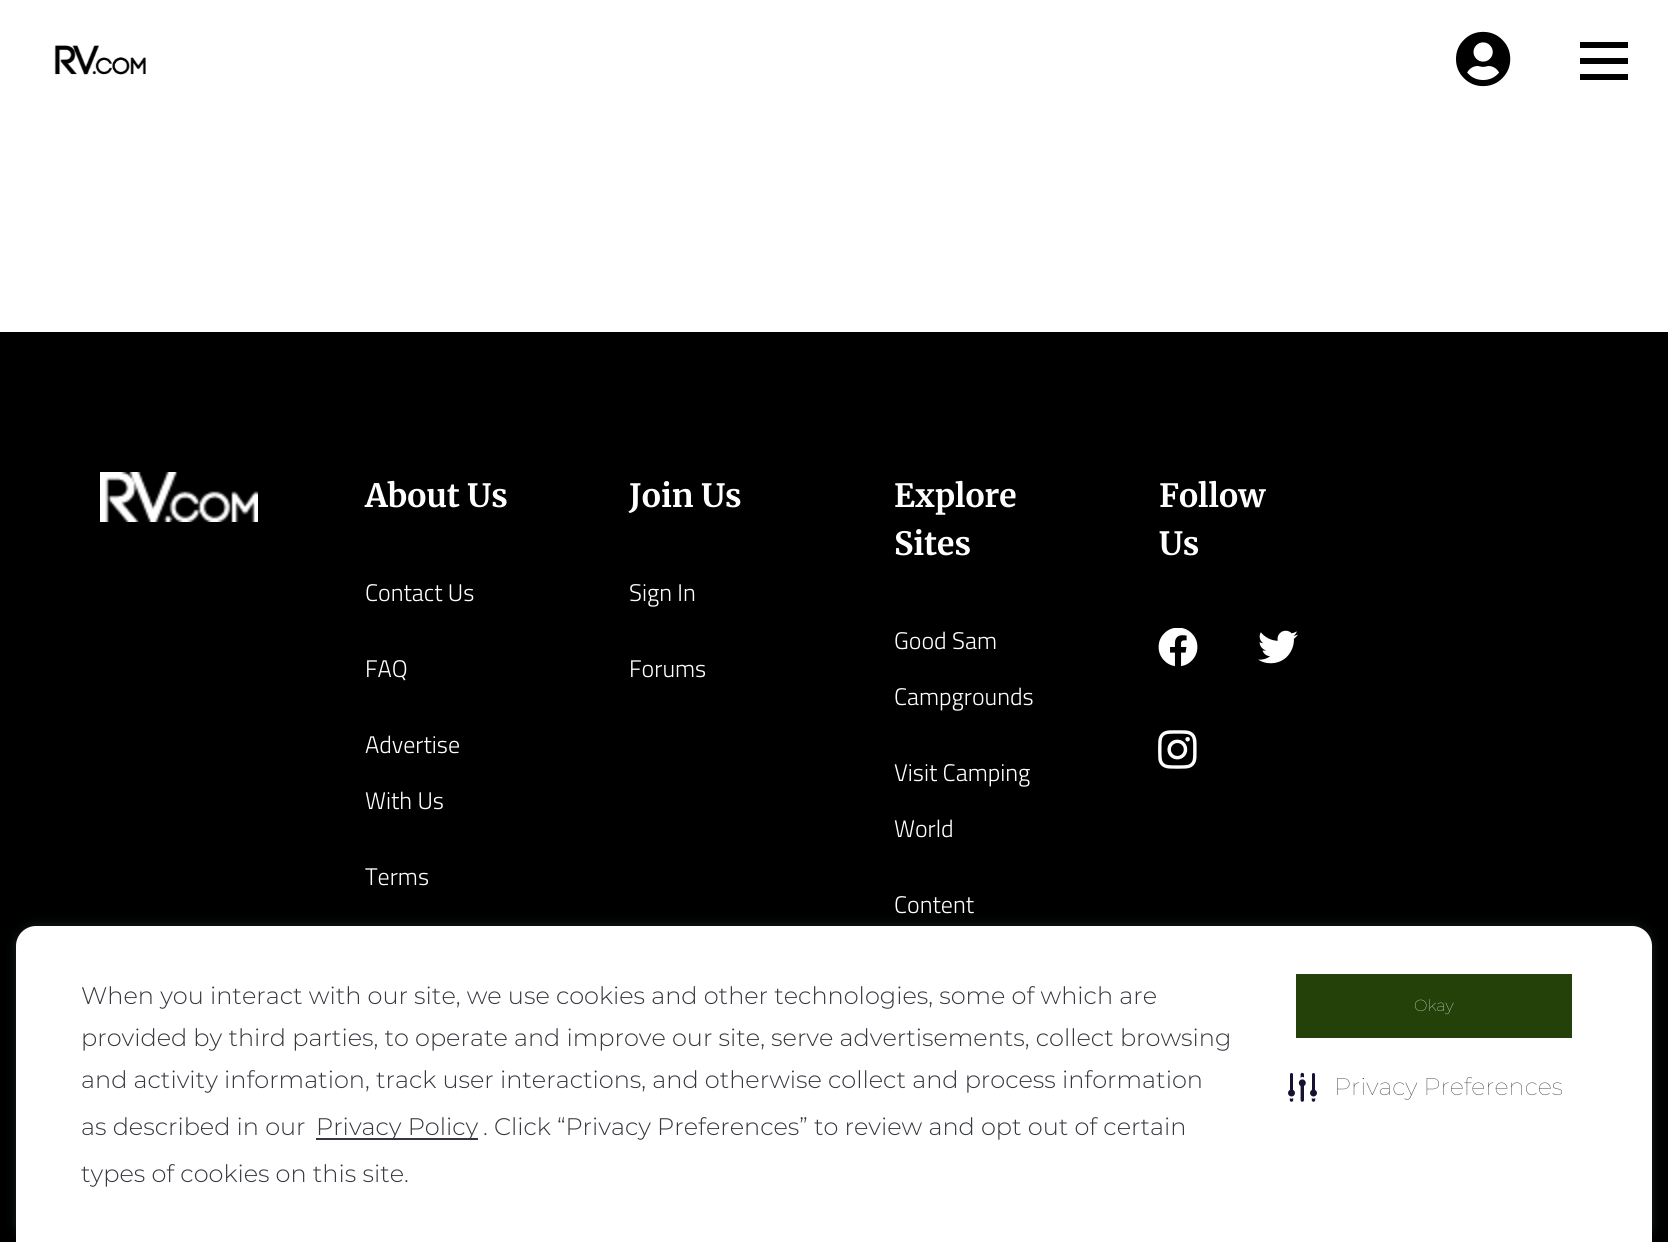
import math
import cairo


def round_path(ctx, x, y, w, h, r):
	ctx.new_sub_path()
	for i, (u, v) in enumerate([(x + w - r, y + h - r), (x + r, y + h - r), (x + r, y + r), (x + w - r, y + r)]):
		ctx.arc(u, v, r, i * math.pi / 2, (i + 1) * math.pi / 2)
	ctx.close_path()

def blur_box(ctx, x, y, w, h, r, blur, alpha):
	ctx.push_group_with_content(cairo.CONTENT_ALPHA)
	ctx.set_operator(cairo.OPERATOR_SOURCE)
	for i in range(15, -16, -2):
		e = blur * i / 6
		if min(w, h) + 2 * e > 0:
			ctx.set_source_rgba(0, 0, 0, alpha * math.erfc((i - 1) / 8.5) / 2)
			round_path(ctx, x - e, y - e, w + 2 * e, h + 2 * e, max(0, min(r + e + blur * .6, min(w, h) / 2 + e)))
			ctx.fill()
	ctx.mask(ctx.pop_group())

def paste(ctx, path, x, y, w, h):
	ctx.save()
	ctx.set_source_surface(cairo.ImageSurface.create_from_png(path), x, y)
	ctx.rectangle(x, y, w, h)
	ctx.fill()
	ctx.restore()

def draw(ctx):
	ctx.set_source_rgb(1, 1, 1)
	ctx.paint()
	paste(ctx, 'media/1.png', 54, 45, 92, 30)
	paste(ctx, 'media/2.png', 1456, 31, 55, 56)
	ctx.set_source_rgb(0, 0, 0)
	ctx.rectangle(1580, 58, 48, 6)
	ctx.rectangle(1580, 42, 48, 6)
	ctx.rectangle(1580, 74, 48, 6)
	ctx.rectangle(0, 332, 1668, 910)
	ctx.fill()
	paste(ctx, 'media/3.png', 100, 472, 158, 50)
	ctx.select_font_face('Merriweather Light')
	ctx.set_font_size(32)
	ctx.set_source_rgb(1, 1, 1)
	ctx.move_to(365, 507)
	ctx.show_text('About Us')
	ctx.select_font_face('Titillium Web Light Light')
	ctx.set_font_size(24)
	for x, y, s in [
		(365, 601, 'Contact Us'),
		(365, 677, 'FAQ'),
		(365, 753, 'Advertise'),
		(365, 809, 'With Us'),
		(365, 885, 'Terms'),
	]:
		ctx.move_to(x, y)
		ctx.show_text(s)
	ctx.select_font_face('Merriweather Light')
	ctx.set_font_size(32)
	ctx.move_to(629, 507)
	ctx.show_text('Join Us')
	ctx.select_font_face('Titillium Web Light Light')
	ctx.set_font_size(24)
	ctx.move_to(629, 601)
	ctx.show_text('Sign In')
	ctx.move_to(629, 677)
	ctx.show_text('Forums')
	ctx.select_font_face('Merriweather Light')
	ctx.set_font_size(32)
	ctx.move_to(894, 507)
	ctx.show_text('Explore')
	ctx.move_to(894, 555)
	ctx.show_text('Sites')
	ctx.select_font_face('Titillium Web Light Light')
	ctx.set_font_size(24)
	for x, y, s in [
		(894, 649, 'Good Sam'),
		(894, 705, 'Campgrounds'),
		(894, 781, 'Visit Camping'),
		(894, 837, 'World'),
		(894, 913, 'Content'),
	]:
		ctx.move_to(x, y)
		ctx.show_text(s)
	ctx.select_font_face('Merriweather Light')
	ctx.set_font_size(32)
	ctx.move_to(1159, 507)
	ctx.show_text('Follow')
	ctx.move_to(1159, 555)
	ctx.show_text('Us')
	paste(ctx, 'media/4.png', 1158, 628, 40, 39)
	paste(ctx, 'media/5.png', 1258, 630, 40, 34)
	paste(ctx, 'media/6.png', 1158, 730, 39, 39)
	ctx.set_source_rgb(0.098, 0.133, 0.141)
	blur_box(ctx, 16, 926, 1636, 316, 20, 5, 1)
	ctx.set_source_rgb(1, 1, 1)
	ctx.new_path()
	ctx.move_to(36, 926)
	ctx.line_to(1632, 926)
	ctx.curve_to(1643, 926, 1652, 935, 1652, 946)
	ctx.line_to(1652, 1242)
	ctx.line_to(16, 1242)
	ctx.line_to(16, 946)
	ctx.curve_to(16, 935, 25, 926, 36, 926)
	ctx.close_path()
	ctx.fill()
	ctx.select_font_face('Montserrat Light')
	ctx.set_font_size(24)
	ctx.set_source_rgb(0.208, 0.22, 0.243)
	for x, y, s in [
		(81, 1004, 'When you interact with our site, we use cookies and other technologies, some of which are'),
		(81, 1046, 'provided by third parties, to operate and improve our site, serve advertisements, collect browsing'),
		(81, 1088, 'and activity information, track user interactions, and otherwise collect and process information'),
		(81, 1135, 'as described in our'),
	]:
		ctx.move_to(x, y)
		ctx.show_text(s)
	ctx.rectangle(316, 1138, 162, 2)
	ctx.fill()
	for x, y, s in [
		(316, 1135, 'Privacy Policy'),
		(483, 1135, '. Click “Privacy Preferences” to review and opt out of certain'),
		(81, 1182, 'types of cookies on this site.'),
	]:
		ctx.move_to(x, y)
		ctx.show_text(s)
	ctx.set_source_rgb(0.137, 0.255, 0.039)
	ctx.rectangle(1296, 974, 276, 64)
	ctx.fill()
	ctx.select_font_face('Montserrat Thin')
	ctx.set_font_size(16)
	ctx.set_source_rgb(1, 1, 1)
	ctx.move_to(1414, 1011)
	ctx.show_text('Okay')
	paste(ctx, 'media/7.png', 1288, 1072, 29, 30)
	ctx.set_font_size(24)
	ctx.set_source_rgb(0.208, 0.22, 0.243)
	ctx.move_to(1334, 1095)
	ctx.show_text('Privacy Preferences')


surface = cairo.ImageSurface(cairo.FORMAT_RGB24, 1668, 1242)
ctx = cairo.Context(surface)
options = cairo.FontOptions()
options.set_hint_metrics(cairo.HINT_METRICS_OFF)
options.set_hint_style(cairo.HINT_STYLE_NONE)
ctx.set_font_options(options)
ctx.set_miter_limit(4)
draw(ctx)
surface.write_to_png('image.png')
